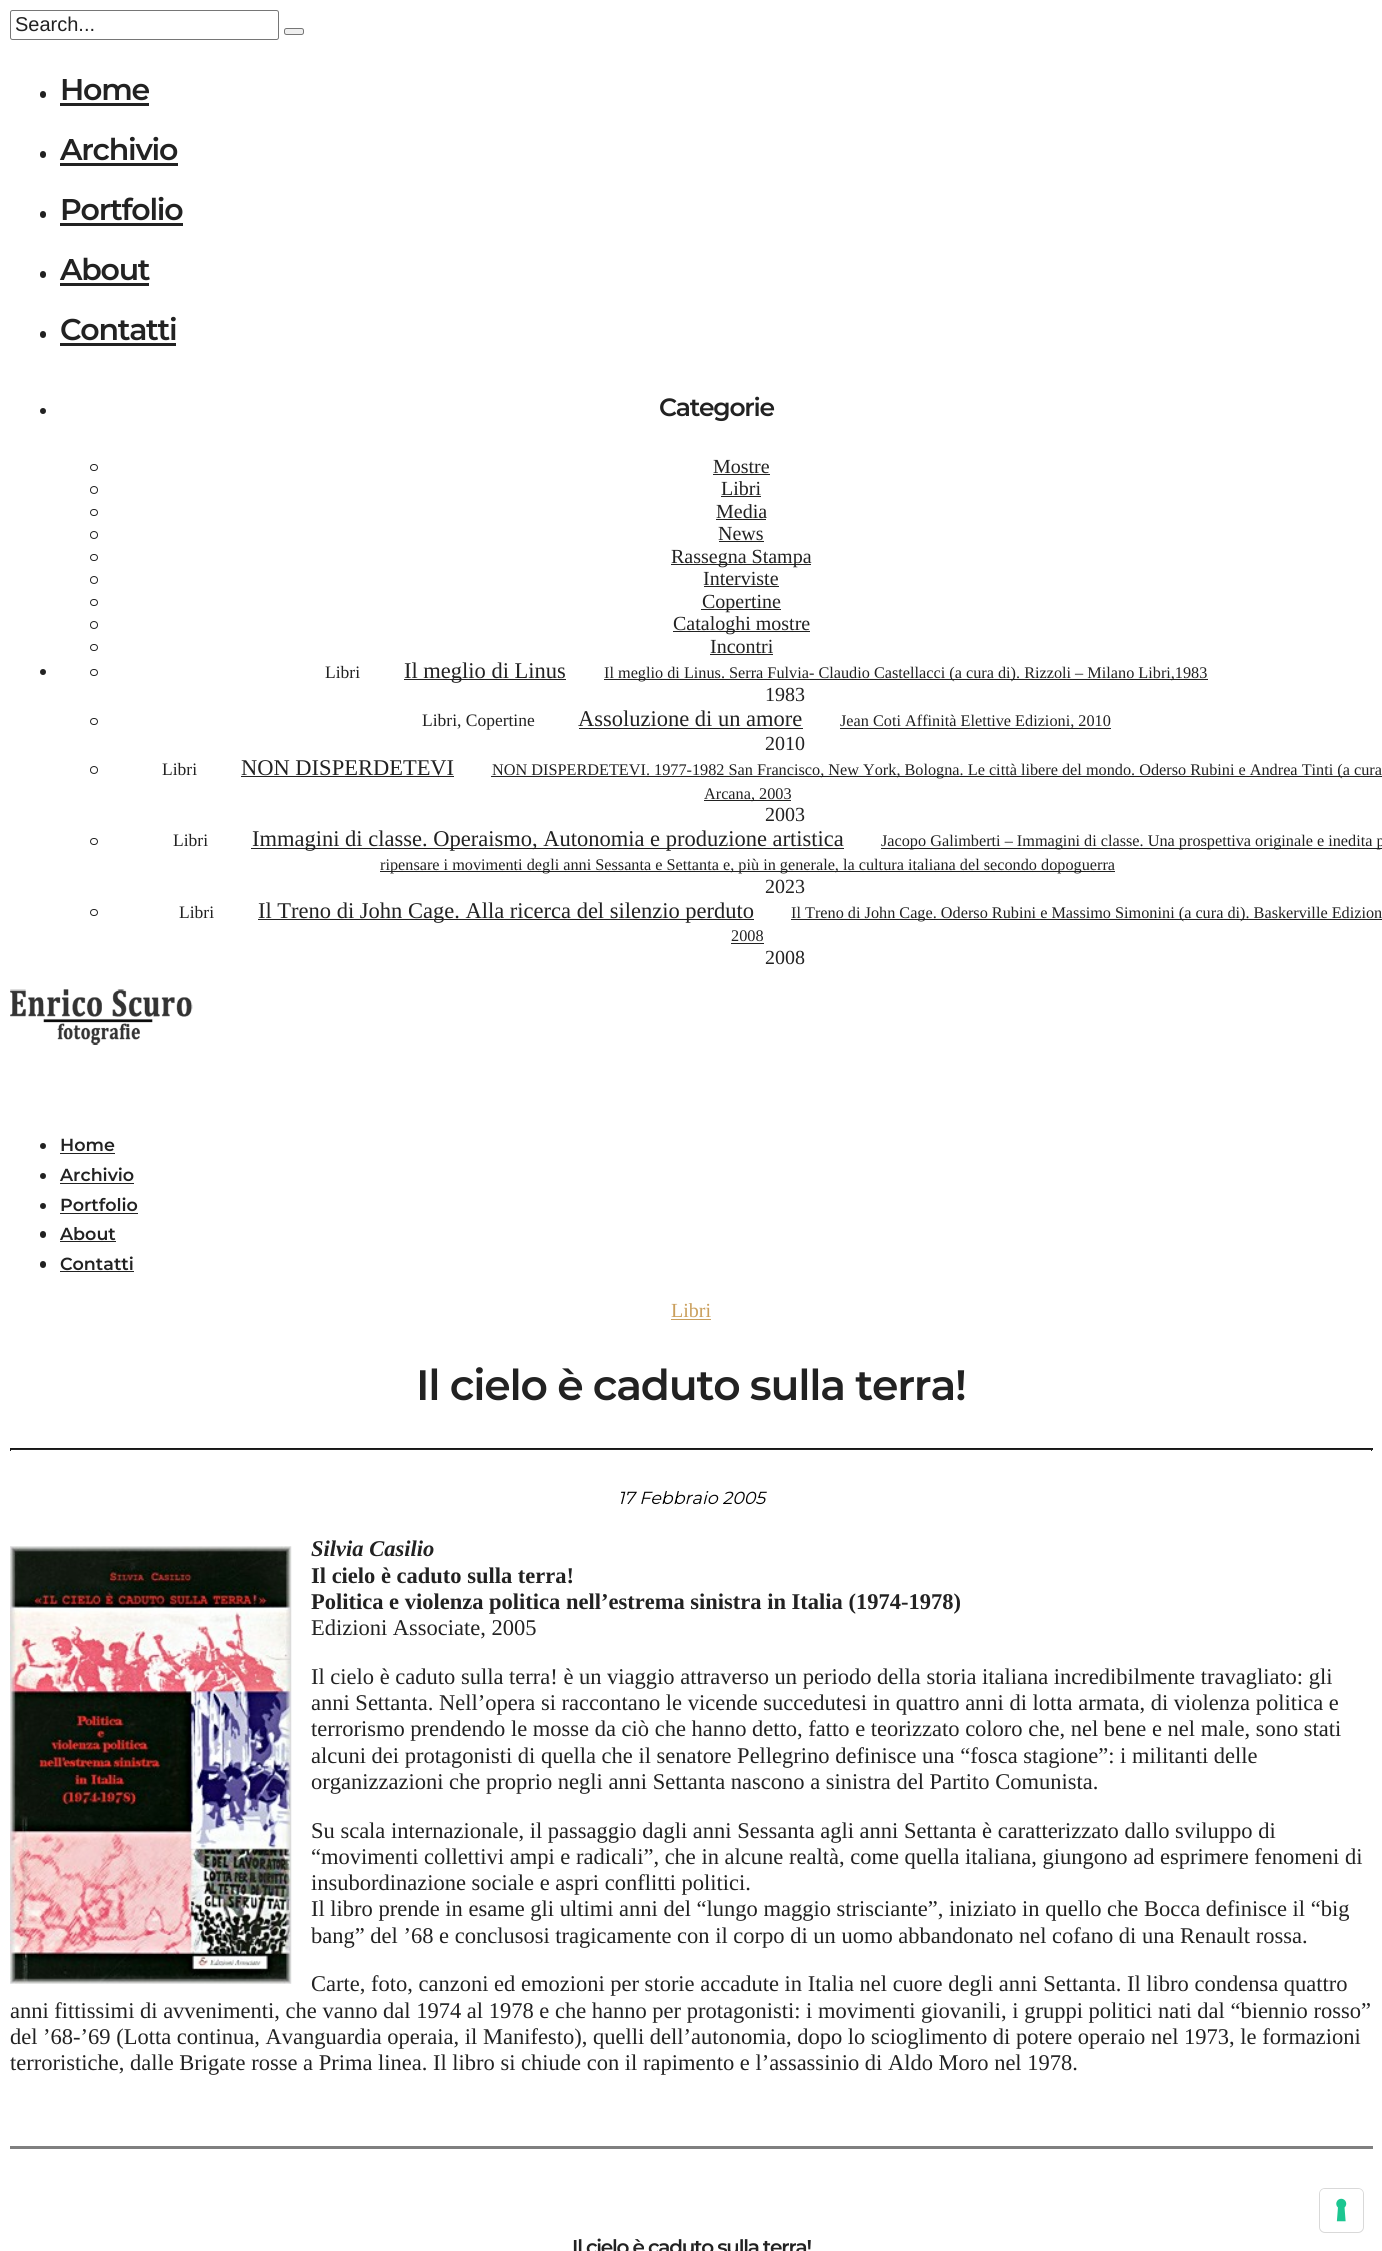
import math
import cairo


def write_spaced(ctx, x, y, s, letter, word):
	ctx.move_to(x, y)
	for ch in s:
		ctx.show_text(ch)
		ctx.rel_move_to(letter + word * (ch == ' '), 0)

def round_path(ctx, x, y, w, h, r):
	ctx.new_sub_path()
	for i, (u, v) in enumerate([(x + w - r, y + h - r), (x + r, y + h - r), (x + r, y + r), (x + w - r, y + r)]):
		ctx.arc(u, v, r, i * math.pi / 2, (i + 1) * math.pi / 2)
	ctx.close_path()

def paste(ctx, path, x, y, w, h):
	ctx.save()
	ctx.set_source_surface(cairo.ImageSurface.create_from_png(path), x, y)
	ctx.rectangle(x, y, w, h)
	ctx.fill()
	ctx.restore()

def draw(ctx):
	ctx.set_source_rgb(1, 1, 1)
	ctx.paint()
	round_path(ctx, 10.5, 10.5, 268, 29, 2)
	ctx.set_source_rgb(0.463, 0.463, 0.463)
	ctx.set_line_width(1)
	ctx.stroke()
	ctx.select_font_face('Liberation Sans')
	ctx.set_font_size(20)
	ctx.set_source_rgb(0.133, 0.133, 0.133)
	ctx.move_to(15, 31)
	ctx.show_text('Search...')
	ctx.set_source_rgb(0.937, 0.937, 0.937)
	round_path(ctx, 284.5, 28.5, 19, 6, 2)
	ctx.fill_preserve()
	ctx.set_source_rgb(0.463, 0.463, 0.463)
	ctx.stroke()
	ctx.set_source_rgb(0.133, 0.133, 0.133)
	round_path(ctx, 40, 91, 6, 7, 3)
	ctx.fill()
	ctx.select_font_face('Montserrat SemiBold')
	ctx.set_font_size(30)
	write_spaced(ctx, 60, 100, 'Home', -1.25, 0)
	ctx.rectangle(60, 103, 89, 3)
	ctx.fill()
	round_path(ctx, 40, 151, 6, 7, 3)
	ctx.fill()
	write_spaced(ctx, 60, 160, 'Archivio', -1.25, 0)
	ctx.rectangle(60, 163, 118, 3)
	ctx.fill()
	round_path(ctx, 40, 211, 6, 7, 3)
	ctx.fill()
	write_spaced(ctx, 60, 220, 'Portfolio', -1.25, 0)
	ctx.rectangle(60, 223, 123, 3)
	ctx.fill()
	round_path(ctx, 40, 271, 6, 7, 3)
	ctx.fill()
	write_spaced(ctx, 60, 280, 'About', -1.25, 0)
	ctx.rectangle(60, 283, 89, 3)
	ctx.fill()
	round_path(ctx, 40, 331, 6, 7, 3)
	ctx.fill()
	write_spaced(ctx, 60, 340, 'Contatti', -1.25, 0)
	ctx.rectangle(60, 343, 116, 3)
	ctx.fill()
	ctx.arc(43, 411, 3, 0, 2 * math.pi)
	ctx.fill()
	ctx.set_font_size(25)
	write_spaced(ctx, 659, 416, 'Categorie', -1.25, 0)
	round_path(ctx, 90.5, 464.5, 7, 6, 3)
	ctx.stroke()
	ctx.select_font_face('Liberation Serif')
	ctx.set_font_size(20)
	ctx.move_to(713, 473)
	ctx.show_text('Mostre')
	ctx.rectangle(713, 474, 57, 1)
	ctx.fill()
	ctx.arc(94, 490, 3.5, 0, 2 * math.pi)
	ctx.stroke()
	ctx.move_to(721, 495)
	ctx.show_text('Libri')
	ctx.rectangle(721, 496, 40, 1)
	ctx.fill()
	round_path(ctx, 90.5, 509.5, 7, 6, 3)
	ctx.stroke()
	ctx.move_to(716, 518)
	ctx.show_text('Media')
	ctx.rectangle(716, 519, 50, 1)
	ctx.fill()
	ctx.arc(94, 535, 3.5, 0, 2 * math.pi)
	ctx.stroke()
	ctx.move_to(718, 540)
	ctx.show_text('News')
	ctx.rectangle(719, 541, 45, 1)
	ctx.fill()
	round_path(ctx, 90.5, 554.5, 7, 6, 3)
	ctx.stroke()
	ctx.rectangle(671, 564, 140, 1)
	ctx.fill()
	ctx.move_to(671, 563)
	ctx.show_text('Rassegna Stampa')
	ctx.new_path()
	ctx.arc(94, 580, 3.5, 0, 2 * math.pi)
	ctx.stroke()
	ctx.move_to(703, 585)
	ctx.show_text('Interviste')
	ctx.rectangle(704, 586, 75, 1)
	ctx.fill()
	round_path(ctx, 90.5, 599.5, 7, 6, 3)
	ctx.stroke()
	ctx.rectangle(701, 609, 80, 1)
	ctx.fill()
	ctx.move_to(702, 608)
	ctx.show_text('Copertine')
	ctx.new_path()
	ctx.arc(94, 625, 3.5, 0, 2 * math.pi)
	ctx.stroke()
	ctx.rectangle(673, 631, 137, 1)
	ctx.fill()
	ctx.move_to(673, 630)
	ctx.show_text('Cataloghi mostre')
	round_path(ctx, 90.5, 644.5, 7, 6, 3)
	ctx.stroke()
	ctx.move_to(710, 653)
	ctx.show_text('Incontri')
	ctx.rectangle(710, 654, 63, 1)
	ctx.fill()
	ctx.arc(43, 672, 3, 0, 2 * math.pi)
	ctx.fill()
	round_path(ctx, 90.5, 669.5, 7, 6, 3)
	ctx.stroke()
	ctx.set_font_size(17.5)
	ctx.move_to(325, 678)
	ctx.show_text('Libri')
	ctx.rectangle(404, 679, 162, 1)
	ctx.fill()
	ctx.set_font_size(22.5)
	ctx.move_to(404, 678)
	ctx.show_text('Il meglio di Linus')
	ctx.rectangle(604, 679, 604, 1)
	ctx.fill()
	ctx.set_font_size(16.25)
	ctx.move_to(604, 678)
	ctx.show_text('Il meglio di Linus. Serra Fulvia- Claudio Castellacci (a cura di). Rizzoli – Milano Libri,1983')
	ctx.set_font_size(20)
	ctx.move_to(765, 701)
	ctx.show_text('1983')
	round_path(ctx, 90.5, 718.5, 7, 6, 3)
	ctx.stroke()
	ctx.set_font_size(17.5)
	ctx.move_to(422, 726)
	ctx.show_text('Libri, Copertine')
	ctx.set_font_size(22.5)
	ctx.move_to(578, 726)
	ctx.show_text('Assoluzione di un amore')
	ctx.rectangle(579, 728, 224, 1)
	ctx.fill()
	ctx.rectangle(840, 728, 271, 1)
	ctx.fill()
	ctx.set_font_size(16.25)
	ctx.move_to(840, 726)
	ctx.show_text('Jean Coti Affinità Elettive Edizioni, 2010')
	ctx.set_font_size(20)
	ctx.move_to(765, 750)
	ctx.show_text('2010')
	ctx.new_path()
	ctx.arc(94, 770, 3.5, 0, 2 * math.pi)
	ctx.stroke()
	ctx.set_font_size(17.5)
	ctx.move_to(162, 775)
	ctx.show_text('Libri')
	ctx.set_font_size(22.5)
	ctx.move_to(241, 775)
	ctx.show_text('NON DISPERDETEVI')
	ctx.rectangle(241, 776, 213, 1)
	ctx.fill()
	ctx.rectangle(491, 776, 891, 1)
	ctx.fill()
	ctx.set_font_size(16.25)
	ctx.move_to(492, 775)
	ctx.show_text('NON DISPERDETEVI. 1977-1982 San Francisco, New York, Bologna. Le città libere del mondo. Oderso Rubini e Andrea Tinti (a cura')
	ctx.rectangle(704, 800, 87, 1)
	ctx.fill()
	ctx.move_to(704, 799)
	ctx.show_text('Arcana, 2003')
	ctx.set_font_size(20)
	ctx.move_to(765, 821)
	ctx.show_text('2003')
	round_path(ctx, 90.5, 838.5, 7, 6, 3)
	ctx.stroke()
	ctx.set_font_size(17.5)
	ctx.move_to(173, 846)
	ctx.show_text('Libri')
	ctx.rectangle(251, 848, 593, 1)
	ctx.fill()
	ctx.set_font_size(22.5)
	ctx.move_to(252, 846)
	ctx.show_text('Immagini di classe. Operaismo, Autonomia e produzione artistica')
	ctx.rectangle(881, 848, 501, 1)
	ctx.fill()
	ctx.set_font_size(16.25)
	ctx.move_to(881, 846)
	ctx.show_text('Jacopo Galimberti – Immagini di classe. Una prospettiva originale e inedita p')
	ctx.rectangle(380, 871, 735, 1)
	ctx.fill()
	ctx.move_to(380, 870)
	ctx.show_text('ripensare i movimenti degli anni Sessanta e Settanta e, più in generale, la cultura italiana del secondo dopoguerra')
	ctx.set_font_size(20)
	ctx.move_to(765, 893)
	ctx.show_text('2023')
	round_path(ctx, 90.5, 909.5, 7, 6, 3)
	ctx.stroke()
	ctx.set_font_size(17.5)
	ctx.move_to(179, 918)
	ctx.show_text('Libri')
	ctx.rectangle(258, 919, 496, 1)
	ctx.fill()
	ctx.set_font_size(22.5)
	ctx.move_to(258, 918)
	ctx.show_text('Il Treno di John Cage. Alla ricerca del silenzio perduto')
	ctx.rectangle(791, 919, 591, 1)
	ctx.fill()
	ctx.set_font_size(16.25)
	ctx.move_to(791, 918)
	ctx.show_text('Il Treno di John Cage. Oderso Rubini e Massimo Simonini (a cura di). Baskerville Edizion')
	ctx.move_to(731, 941)
	ctx.show_text('2008')
	ctx.rectangle(731, 943, 33, 1)
	ctx.fill()
	ctx.set_font_size(20)
	ctx.move_to(765, 964)
	ctx.show_text('2008')
	paste(ctx, 'media/1.png', 10, 989, 183, 56)
	ctx.arc(43, 1146, 3, 0, 2 * math.pi)
	ctx.fill()
	ctx.select_font_face('Montserrat SemiBold')
	ctx.set_font_size(17.5)
	ctx.move_to(60, 1151)
	ctx.show_text('Home')
	ctx.rectangle(60, 1153, 55, 1)
	ctx.fill()
	ctx.arc(43, 1176, 3, 0, 2 * math.pi)
	ctx.fill()
	ctx.move_to(60, 1181)
	ctx.show_text('Archivio')
	ctx.rectangle(60, 1183, 74, 1)
	ctx.fill()
	ctx.arc(43, 1206, 3, 0, 2 * math.pi)
	ctx.fill()
	ctx.move_to(60, 1211)
	ctx.show_text('Portfolio')
	ctx.rectangle(60, 1213, 78, 1)
	ctx.fill()
	round_path(ctx, 40, 1231, 6, 7, 3)
	ctx.fill()
	ctx.move_to(60, 1240)
	ctx.show_text('About')
	ctx.rectangle(60, 1241, 56, 1)
	ctx.fill()
	round_path(ctx, 40, 1261, 6, 7, 3)
	ctx.fill()
	ctx.move_to(60, 1270)
	ctx.show_text('Contatti')
	ctx.rectangle(60, 1271, 74, 1)
	ctx.fill()
	ctx.select_font_face('Liberation Serif')
	ctx.set_font_size(20)
	ctx.set_source_rgb(0.792, 0.624, 0.361)
	ctx.move_to(671, 1317)
	ctx.show_text('Libri')
	ctx.rectangle(671, 1319, 40, 1)
	ctx.fill()
	ctx.select_font_face('Montserrat SemiBold')
	ctx.set_font_size(42.5)
	ctx.set_source_rgb(0.133, 0.133, 0.133)
	write_spaced(ctx, 416, 1400, 'Il cielo è caduto sulla terra!', -1.25, 0)
	ctx.set_source_rgb(0.09, 0.09, 0.09)
	ctx.rectangle(10, 1448, 1363, 1)
	ctx.fill()
	ctx.set_source_rgb(0.133, 0.133, 0.133)
	ctx.rectangle(1371, 1448, 1, 3)
	ctx.rectangle(10, 1449, 1363, 1)
	ctx.fill()
	ctx.set_source_rgb(0.09, 0.09, 0.09)
	ctx.rectangle(10, 1448, 1, 3)
	ctx.fill()
	ctx.select_font_face('Montserrat', cairo.FONT_SLANT_ITALIC)
	ctx.set_font_size(17.5)
	ctx.set_source_rgb(0, 0, 0)
	ctx.move_to(618, 1504)
	ctx.show_text('17 Febbraio 2005')
	paste(ctx, 'media/2.png', 10, 1546, 282, 438)
	ctx.select_font_face('Liberation Serif', cairo.FONT_SLANT_ITALIC, cairo.FONT_WEIGHT_BOLD)
	ctx.set_font_size(22.5)
	ctx.set_source_rgb(0.133, 0.133, 0.133)
	ctx.move_to(311, 1556)
	ctx.show_text('Silvia Casilio')
	ctx.select_font_face('Liberation Serif', cairo.FONT_SLANT_NORMAL, cairo.FONT_WEIGHT_BOLD)
	ctx.move_to(311, 1583)
	ctx.show_text('Il cielo è caduto sulla terra!')
	ctx.move_to(311, 1609)
	ctx.show_text('Politica e violenza politica nell’estrema sinistra in Italia (1974-1978)')
	ctx.select_font_face('Liberation Serif')
	for x, y, s in [
		(311, 1635, 'Edizioni Associate, 2005'),
		(311, 1684, 'Il cielo è caduto sulla terra! è un viaggio attraverso un periodo della storia italiana incredibilmente travagliato: gli'),
		(311, 1710, 'anni Settanta. Nell’opera si raccontano le vicende succedutesi in quattro anni di lotta armata, di violenza politica e'),
		(311, 1736, 'terrorismo prendendo le mosse da ciò che hanno detto, fatto e teorizzato coloro che, nel bene e nel male, sono stati'),
		(311, 1763, 'alcuni dei protagonisti di quella che il senatore Pellegrino definisce una “fosca stagione”: i militanti delle'),
		(311, 1789, 'organizzazioni che proprio negli anni Settanta nascono a sinistra del Partito Comunista.'),
		(311, 1838, 'Su scala internazionale, il passaggio dagli anni Sessanta agli anni Settanta è caratterizzato dallo sviluppo di'),
		(311, 1864, '“movimenti collettivi ampi e radicali”, che in alcune realtà, come quella italiana, giungono ad esprimere fenomeni di'),
		(311, 1890, 'insubordinazione sociale e aspri conflitti politici.'),
		(311, 1916, 'Il libro prende in esame gli ultimi anni del “lungo maggio strisciante”, iniziato in quello che Bocca definisce il “big'),
		(311, 1943, 'bang” del ’68 e conclusosi tragicamente con il corpo di un uomo abbandonato nel cofano di una Renault rossa.'),
		(311, 1991, 'Carte, foto, canzoni ed emozioni per storie accadute in Italia nel cuore degli anni Settanta. Il libro condensa quattro'),
		(10, 2018, 'anni fittissimi di avvenimenti, che vanno dal 1974 al 1978 e che hanno per protagonisti: i movimenti giovanili, i gruppi politici nati dal “biennio rosso”'),
		(10, 2044, 'del ’68-’69 (Lotta continua, Avanguardia operaia, il Manifesto), quelli dell’autonomia, dopo lo scioglimento di potere operaio nel 1973, le formazioni'),
		(10, 2070, 'terroristiche, dalle Brigate rosse a Prima linea. Il libro si chiude con il rapimento e l’assassinio di Aldo Moro nel 1978.'),
	]:
		ctx.move_to(x, y)
		ctx.show_text(s)
	ctx.set_source_rgb(0.502, 0.502, 0.502)
	ctx.rectangle(10, 2146, 1363, 3)
	ctx.fill()
	ctx.select_font_face('Montserrat SemiBold')
	ctx.set_font_size(20)
	ctx.set_source_rgb(0.133, 0.133, 0.133)
	write_spaced(ctx, 572, 2254, 'Il cielo è caduto sulla terra!', -1.25, 0)
	round_path(ctx, 1319.5, 2188.5, 44, 44, 5.5)
	ctx.set_source_rgb(0.851, 0.851, 0.851)
	ctx.stroke()
	ctx.set_source_rgb(1, 1, 1)
	round_path(ctx, 1320, 2189, 43, 42, 5)
	ctx.fill()
	paste(ctx, 'media/3.png', 1336, 2198, 11, 24)


surface = cairo.ImageSurface(cairo.FORMAT_RGB24, 1382, 2251)
ctx = cairo.Context(surface)
options = cairo.FontOptions()
options.set_hint_metrics(cairo.HINT_METRICS_OFF)
options.set_hint_style(cairo.HINT_STYLE_NONE)
ctx.set_font_options(options)
ctx.set_miter_limit(4)
draw(ctx)
surface.write_to_png('image.png')
